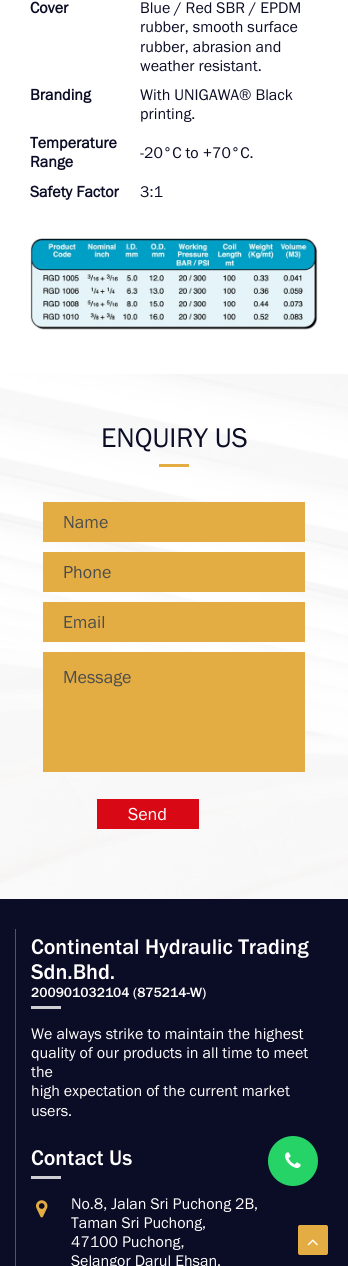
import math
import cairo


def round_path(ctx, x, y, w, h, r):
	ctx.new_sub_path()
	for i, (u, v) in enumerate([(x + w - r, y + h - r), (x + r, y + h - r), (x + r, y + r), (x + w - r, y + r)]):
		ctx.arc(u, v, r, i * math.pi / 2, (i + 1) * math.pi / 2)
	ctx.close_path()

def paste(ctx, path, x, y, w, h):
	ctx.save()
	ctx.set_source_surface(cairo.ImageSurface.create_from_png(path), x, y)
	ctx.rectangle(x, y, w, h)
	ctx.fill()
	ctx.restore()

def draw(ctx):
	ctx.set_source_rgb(1, 1, 1)
	ctx.paint()
	ctx.select_font_face('Franklin Gothic', cairo.FONT_SLANT_NORMAL, cairo.FONT_WEIGHT_BOLD)
	ctx.set_font_size(16)
	ctx.set_source_rgb(0.043, 0.047, 0.145)
	ctx.move_to(30, 13)
	ctx.show_text('Cover')
	ctx.select_font_face('Franklin Gothic')
	for x, y, s in [
		(140, 13, 'Blue / Red SBR / EPDM'),
		(140, 32, 'rubber, smooth surface'),
		(140, 52, 'rubber, abrasion and'),
		(140, 71, 'weather resistant.'),
	]:
		ctx.move_to(x, y)
		ctx.show_text(s)
	ctx.select_font_face('Franklin Gothic', cairo.FONT_SLANT_NORMAL, cairo.FONT_WEIGHT_BOLD)
	ctx.move_to(30, 100)
	ctx.show_text('Branding')
	ctx.select_font_face('Franklin Gothic')
	ctx.move_to(140, 100)
	ctx.show_text('With UNIGAWA® Black')
	ctx.move_to(140, 119)
	ctx.show_text('printing.')
	ctx.select_font_face('Franklin Gothic', cairo.FONT_SLANT_NORMAL, cairo.FONT_WEIGHT_BOLD)
	ctx.move_to(30, 148)
	ctx.show_text('Temperature')
	ctx.move_to(30, 167)
	ctx.show_text('Range')
	ctx.select_font_face('Franklin Gothic')
	ctx.move_to(140, 158)
	ctx.show_text('-20°C to +70°C.')
	ctx.select_font_face('Franklin Gothic', cairo.FONT_SLANT_NORMAL, cairo.FONT_WEIGHT_BOLD)
	ctx.move_to(30, 197)
	ctx.show_text('Safety Factor')
	ctx.select_font_face('Franklin Gothic')
	ctx.move_to(140, 197)
	ctx.show_text('3:1')
	paste(ctx, 'media/1.png', 30, 238, 288, 92)
	ctx.rectangle(0, 899, 348, 367)
	ctx.fill()
	ctx.set_source_rgb(0.145, 0.827, 0.4)
	ctx.arc(293, 1161, 25, 0, 2 * math.pi)
	ctx.fill()
	paste(ctx, 'media/2.png', 285, 1152, 16, 16)
	paste(ctx, 'media/3.png', 0, 374, 348, 525)
	ctx.set_font_size(28)
	ctx.set_source_rgb(0.043, 0.047, 0.145)
	ctx.move_to(101, 447)
	ctx.show_text('ENQUIRY US')
	ctx.set_source_rgb(0.89, 0.678, 0.263)
	ctx.rectangle(159, 464, 30, 3)
	ctx.fill()
	ctx.rectangle(43, 502, 262, 40)
	ctx.fill()
	ctx.set_font_size(18)
	ctx.set_source_rgb(0.302, 0.302, 0.302)
	ctx.move_to(63, 528)
	ctx.show_text('Name')
	ctx.set_source_rgb(0.89, 0.678, 0.263)
	ctx.rectangle(43, 552, 262, 40)
	ctx.fill()
	ctx.set_source_rgb(0.302, 0.302, 0.302)
	ctx.move_to(63, 578)
	ctx.show_text('Phone')
	ctx.set_source_rgb(0.89, 0.678, 0.263)
	ctx.rectangle(43, 602, 262, 40)
	ctx.fill()
	ctx.set_source_rgb(0.302, 0.302, 0.302)
	ctx.move_to(63, 628)
	ctx.show_text('Email')
	ctx.set_source_rgb(0.89, 0.678, 0.263)
	ctx.rectangle(43, 652, 262, 120)
	ctx.fill()
	ctx.set_source_rgb(0.302, 0.302, 0.302)
	ctx.move_to(63, 683)
	ctx.show_text('Message')
	ctx.set_source_rgb(0.847, 0.039, 0.082)
	ctx.rectangle(97, 799, 102, 30)
	ctx.fill()
	ctx.set_source_rgb(1, 1, 1)
	ctx.move_to(128, 820)
	ctx.show_text('Send')
	ctx.set_source_rgb(0.427, 0.31, 0.243)
	ctx.rectangle(15, 929, 1, 337)
	ctx.fill()
	ctx.select_font_face('Franklin Gothic Medium')
	ctx.set_font_size(22)
	ctx.set_source_rgb(1, 1, 1)
	ctx.move_to(31, 954)
	ctx.show_text('Continental Hydraulic Trading')
	ctx.move_to(31, 979)
	ctx.show_text('Sdn.Bhd.')
	ctx.set_font_size(14)
	ctx.move_to(31, 997)
	ctx.show_text('200901032104 (875214-W)')
	ctx.set_source_rgb(0.808, 0.808, 0.827)
	ctx.rectangle(31, 1006, 30, 3)
	ctx.fill()
	ctx.select_font_face('Franklin Gothic')
	ctx.set_font_size(16)
	ctx.set_source_rgb(1, 1, 1)
	for x, y, s in [
		(31, 1039, 'We always strike to maintain the highest'),
		(31, 1058, 'quality of our products in all time to meet'),
		(31, 1077, 'the'),
		(31, 1096, 'high expectation of the current market'),
		(31, 1116, 'users.'),
	]:
		ctx.move_to(x, y)
		ctx.show_text(s)
	ctx.select_font_face('Franklin Gothic Medium')
	ctx.set_font_size(22)
	ctx.move_to(31, 1165)
	ctx.show_text('Contact Us')
	ctx.set_source_rgb(0.808, 0.808, 0.827)
	ctx.rectangle(31, 1176, 30, 3)
	ctx.fill()
	paste(ctx, 'media/4.png', 36, 1200, 12, 18)
	ctx.select_font_face('Franklin Gothic')
	ctx.set_font_size(16)
	ctx.set_source_rgb(1, 1, 1)
	for x, y, s in [
		(71, 1209, 'No.8, Jalan Sri Puchong 2B,'),
		(71, 1228, 'Taman Sri Puchong,'),
		(71, 1247, '47100 Puchong,'),
		(71, 1266, 'Selangor Darul Ehsan.'),
	]:
		ctx.move_to(x, y)
		ctx.show_text(s)
	ctx.set_source_rgb(0.89, 0.678, 0.263)
	round_path(ctx, 298, 1225, 30, 30, 2)
	ctx.fill()
	paste(ctx, 'media/5.png', 307, 1239, 11, 7)


surface = cairo.ImageSurface(cairo.FORMAT_RGB24, 348, 1266)
ctx = cairo.Context(surface)
options = cairo.FontOptions()
options.set_hint_metrics(cairo.HINT_METRICS_OFF)
options.set_hint_style(cairo.HINT_STYLE_NONE)
ctx.set_font_options(options)
ctx.set_miter_limit(4)
draw(ctx)
surface.write_to_png('image.png')
